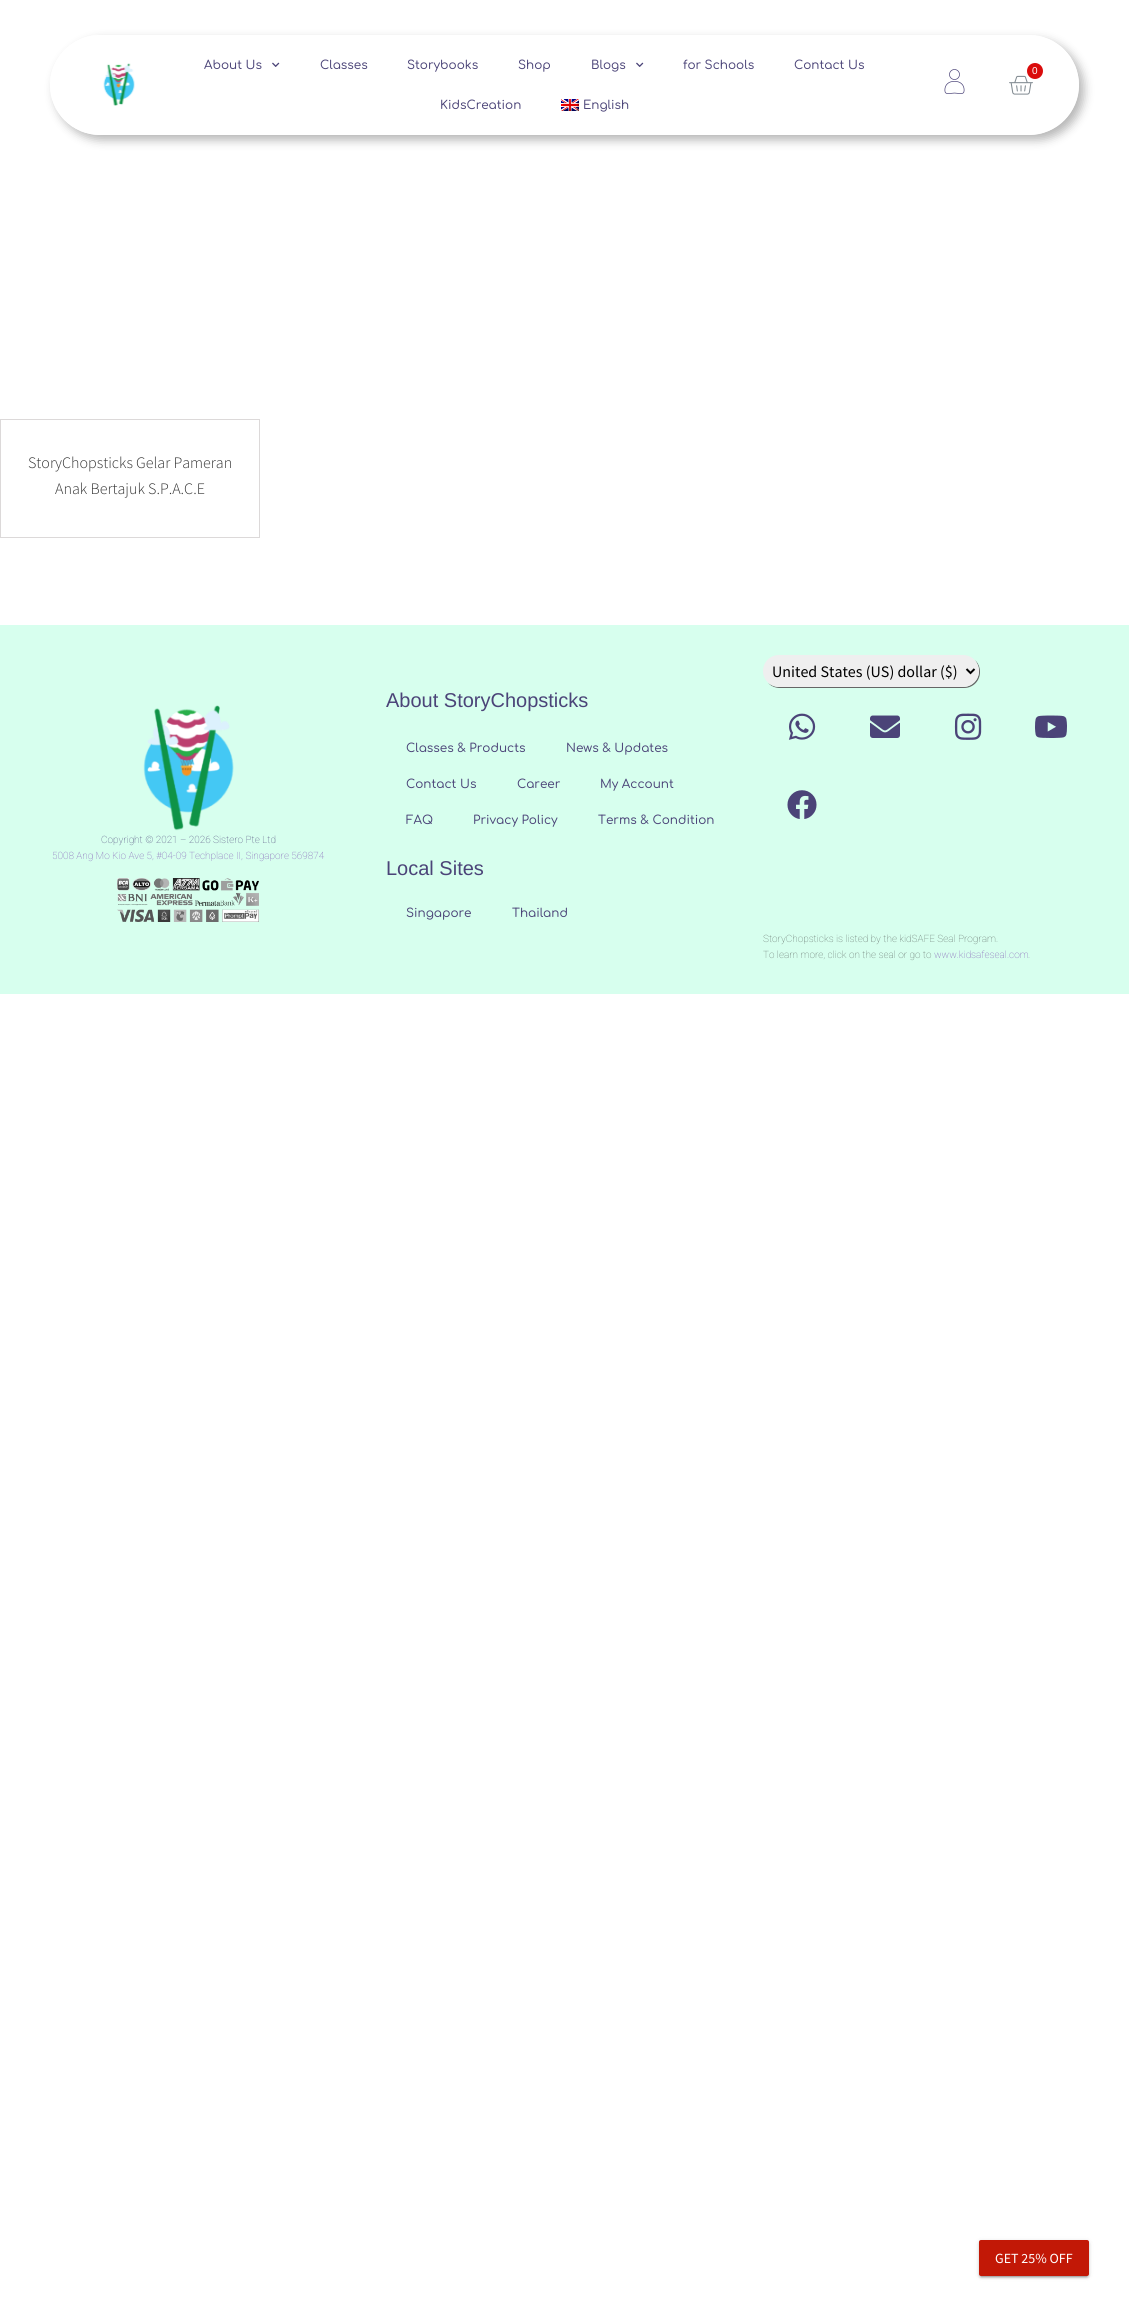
import math
import cairo


def round_path(ctx, x, y, w, h, r):
	ctx.new_sub_path()
	for i, (u, v) in enumerate([(x + w - r, y + h - r), (x + r, y + h - r), (x + r, y + r), (x + w - r, y + r)]):
		ctx.arc(u, v, r, i * math.pi / 2, (i + 1) * math.pi / 2)
	ctx.close_path()

def blur_box(ctx, x, y, w, h, r, blur, alpha):
	ctx.push_group_with_content(cairo.CONTENT_ALPHA)
	ctx.set_operator(cairo.OPERATOR_SOURCE)
	for i in range(15, -16, -2):
		e = blur * i / 6
		if min(w, h) + 2 * e > 0:
			ctx.set_source_rgba(0, 0, 0, alpha * math.erfc((i - 1) / 8.5) / 2)
			round_path(ctx, x - e, y - e, w + 2 * e, h + 2 * e, max(0, min(r + e + blur * .6, min(w, h) / 2 + e)))
			ctx.fill()
	ctx.mask(ctx.pop_group())

def paste(ctx, path, x, y, w, h):
	ctx.save()
	ctx.set_source_surface(cairo.ImageSurface.create_from_png(path), x, y)
	ctx.rectangle(x, y, w, h)
	ctx.fill()
	ctx.restore()

def draw(ctx):
	ctx.set_source_rgb(1, 1, 1)
	ctx.paint()
	ctx.save()
	ctx.set_fill_rule(cairo.FILL_RULE_EVEN_ODD)
	ctx.new_path()
	ctx.move_to(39, 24)
	ctx.line_to(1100, 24)
	ctx.line_to(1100, 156)
	ctx.line_to(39, 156)
	ctx.close_path()
	ctx.move_to(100, 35)
	ctx.line_to(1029, 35)
	ctx.curve_to(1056.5, 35, 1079, 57.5, 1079, 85)
	ctx.curve_to(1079, 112.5, 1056.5, 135, 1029, 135)
	ctx.line_to(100, 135)
	ctx.curve_to(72.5, 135, 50, 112.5, 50, 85)
	ctx.curve_to(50, 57.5, 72.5, 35, 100, 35)
	ctx.close_path()
	ctx.clip()
	ctx.set_source_rgb(0, 0, 0)
	blur_box(ctx, 55, 40, 1029, 100, 50, 5, 0.29)
	ctx.restore()
	ctx.set_source_rgba(1, 1, 1, 0.6)
	round_path(ctx, 50, 35, 1029, 100, 50)
	ctx.fill()
	paste(ctx, 'media/1.png', 103, 63, 32, 43)
	ctx.select_font_face('Comfortaa Medium')
	ctx.set_font_size(12)
	ctx.set_source_rgb(0.294, 0.267, 0.471)
	ctx.move_to(204, 69)
	ctx.show_text('About Us')
	paste(ctx, 'media/2.png', 272, 62, 8, 5)
	for x, y, s in [
		(320, 69, 'Classes'),
		(407, 69, 'Storybooks'),
		(518, 69, 'Shop'),
		(591, 69, 'Blogs'),
	]:
		ctx.move_to(x, y)
		ctx.show_text(s)
	paste(ctx, 'media/2.png', 636, 62, 8, 5)
	for x, y, s in [
		(683, 69, 'for Schools'),
		(794, 69, 'Contact Us'),
		(440, 109, 'KidsCreation'),
	]:
		ctx.move_to(x, y)
		ctx.show_text(s)
	paste(ctx, 'media/3.png', 561, 99, 18, 12)
	ctx.move_to(583, 109)
	ctx.show_text('English')
	paste(ctx, 'media/4.png', 944, 69, 21, 25)
	paste(ctx, 'media/5.png', 1009, 75, 24, 20)
	ctx.set_source_rgb(0.855, 0.047, 0.047)
	ctx.arc(1035, 71, 8, 0, 2 * math.pi)
	ctx.fill()
	ctx.select_font_face('Liberation Sans')
	ctx.set_font_size(10)
	ctx.set_source_rgb(1, 1, 1)
	ctx.move_to(1032, 74)
	ctx.show_text('0')
	ctx.rectangle(0.5, 419.5, 259, 118)
	ctx.set_source_rgb(0.863, 0.851, 0.851)
	ctx.set_line_width(1)
	ctx.stroke()
	ctx.select_font_face('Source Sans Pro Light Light')
	ctx.set_font_size(16)
	ctx.set_source_rgb(0.204, 0.204, 0.204)
	ctx.move_to(28, 468)
	ctx.show_text('StoryChopsticks Gelar Pameran')
	ctx.move_to(55, 494)
	ctx.show_text('Anak Bertajuk S.P.A.C.E')
	ctx.set_source_rgb(0.843, 1, 0.933)
	ctx.rectangle(0, 625, 1129, 369)
	ctx.fill()
	paste(ctx, 'media/6.png', 143, 705, 91, 126)
	ctx.select_font_face('Roboto Thin')
	ctx.set_font_size(10)
	ctx.set_source_rgb(0.294, 0.267, 0.471)
	ctx.move_to(101, 843)
	ctx.show_text('Copyright © 2021 – 2026 Sistero Pte Ltd')
	ctx.set_source_rgb(0.498, 0.329, 0.702)
	ctx.move_to(52, 859)
	ctx.show_text('5008 Ang Mo Kio Ave 5, #04-09 Techplace II, Singapore 569874')
	paste(ctx, 'media/7.png', 117, 878, 142, 44)
	ctx.select_font_face('Liberation Sans')
	ctx.set_font_size(20)
	ctx.set_source_rgb(0.294, 0.267, 0.471)
	ctx.move_to(386, 707)
	ctx.show_text('About StoryChopsticks')
	ctx.select_font_face('Comfortaa Medium')
	ctx.set_font_size(12)
	for x, y, s in [
		(406, 752, 'Classes & Products'),
		(566, 752, 'News & Updates'),
		(406, 788, 'Contact Us'),
		(517, 788, 'Career'),
		(600, 788, 'My Account'),
		(406, 824, 'FAQ'),
		(473, 824, 'Privacy Policy'),
		(598, 824, 'Terms & Condition'),
	]:
		ctx.move_to(x, y)
		ctx.show_text(s)
	ctx.select_font_face('Liberation Sans')
	ctx.set_font_size(20)
	ctx.move_to(386, 875)
	ctx.show_text('Local Sites')
	ctx.select_font_face('Comfortaa Medium')
	ctx.set_font_size(12)
	ctx.move_to(406, 917)
	ctx.show_text('Singapore')
	ctx.move_to(512, 917)
	ctx.show_text('Thailand')
	ctx.set_source_rgb(0.4, 0.4, 0.4)
	ctx.new_path()
	ctx.move_to(768, 683)
	ctx.curve_to(771, 686, 775, 688, 780, 688)
	ctx.line_to(964, 688)
	ctx.curve_to(973, 688, 980, 681, 980, 672)
	ctx.curve_to(980, 667, 978, 663, 975, 660)
	ctx.curve_to(977, 663, 979, 667, 979, 671)
	ctx.curve_to(979, 680, 972, 687, 963, 687)
	ctx.line_to(779, 687)
	ctx.curve_to(775, 687, 771, 685, 768, 683)
	ctx.close_path()
	ctx.fill()
	ctx.set_source_rgb(0.937, 0.937, 0.937)
	round_path(ctx, 763, 655, 216, 32, 16)
	ctx.fill()
	ctx.new_path()
	ctx.move_to(966.5, 669)
	ctx.line_to(970.5, 673)
	ctx.line_to(974.5, 669)
	ctx.set_source_rgb(0, 0, 0)
	ctx.set_line_width(2)
	ctx.stroke()
	ctx.select_font_face('Source Sans Pro')
	ctx.set_font_size(16)
	ctx.move_to(772, 677)
	ctx.show_text('United States (US) dollar ($)')
	paste(ctx, 'media/8.png', 788, 713, 28, 27)
	paste(ctx, 'media/9.png', 870, 715, 30, 23)
	paste(ctx, 'media/10.png', 954, 713, 28, 27)
	paste(ctx, 'media/11.png', 1035, 715, 32, 23)
	paste(ctx, 'media/12.png', 787, 790, 30, 29)
	ctx.select_font_face('Roboto Thin')
	ctx.set_font_size(10)
	ctx.set_source_rgb(0.373, 0.416, 0.396)
	ctx.move_to(763, 942)
	ctx.show_text('StoryChopsticks is listed by the kidSAFE Seal Program.')
	ctx.move_to(763, 958)
	ctx.show_text('To learn more, click on the seal or go to')
	ctx.set_source_rgb(0.498, 0.329, 0.702)
	ctx.move_to(934, 958)
	ctx.show_text('www.kidsafeseal.com')
	ctx.set_source_rgb(0.373, 0.416, 0.396)
	ctx.move_to(1028, 958)
	ctx.show_text('.')
	ctx.set_source_rgb(0, 0, 0)
	blur_box(ctx, 979, 2241, 110, 36, 2, 2.5, 0.12)
	blur_box(ctx, 981, 2245, 106, 32, 0, 0.5, 0.2)
	blur_box(ctx, 979, 2242, 110, 36, 2, 1, 0.14)
	ctx.set_source_rgb(0.761, 0.094, 0.027)
	round_path(ctx, 979, 2240, 110, 36, 2)
	ctx.fill()
	ctx.select_font_face('Source Sans Pro')
	ctx.set_font_size(14)
	ctx.set_source_rgb(1, 1, 1)
	ctx.move_to(995, 2263)
	ctx.show_text('GET 25% OFF')


surface = cairo.ImageSurface(cairo.FORMAT_RGB24, 1129, 2306)
ctx = cairo.Context(surface)
options = cairo.FontOptions()
options.set_hint_metrics(cairo.HINT_METRICS_OFF)
options.set_hint_style(cairo.HINT_STYLE_NONE)
ctx.set_font_options(options)
ctx.set_miter_limit(4)
draw(ctx)
surface.write_to_png('image.png')
